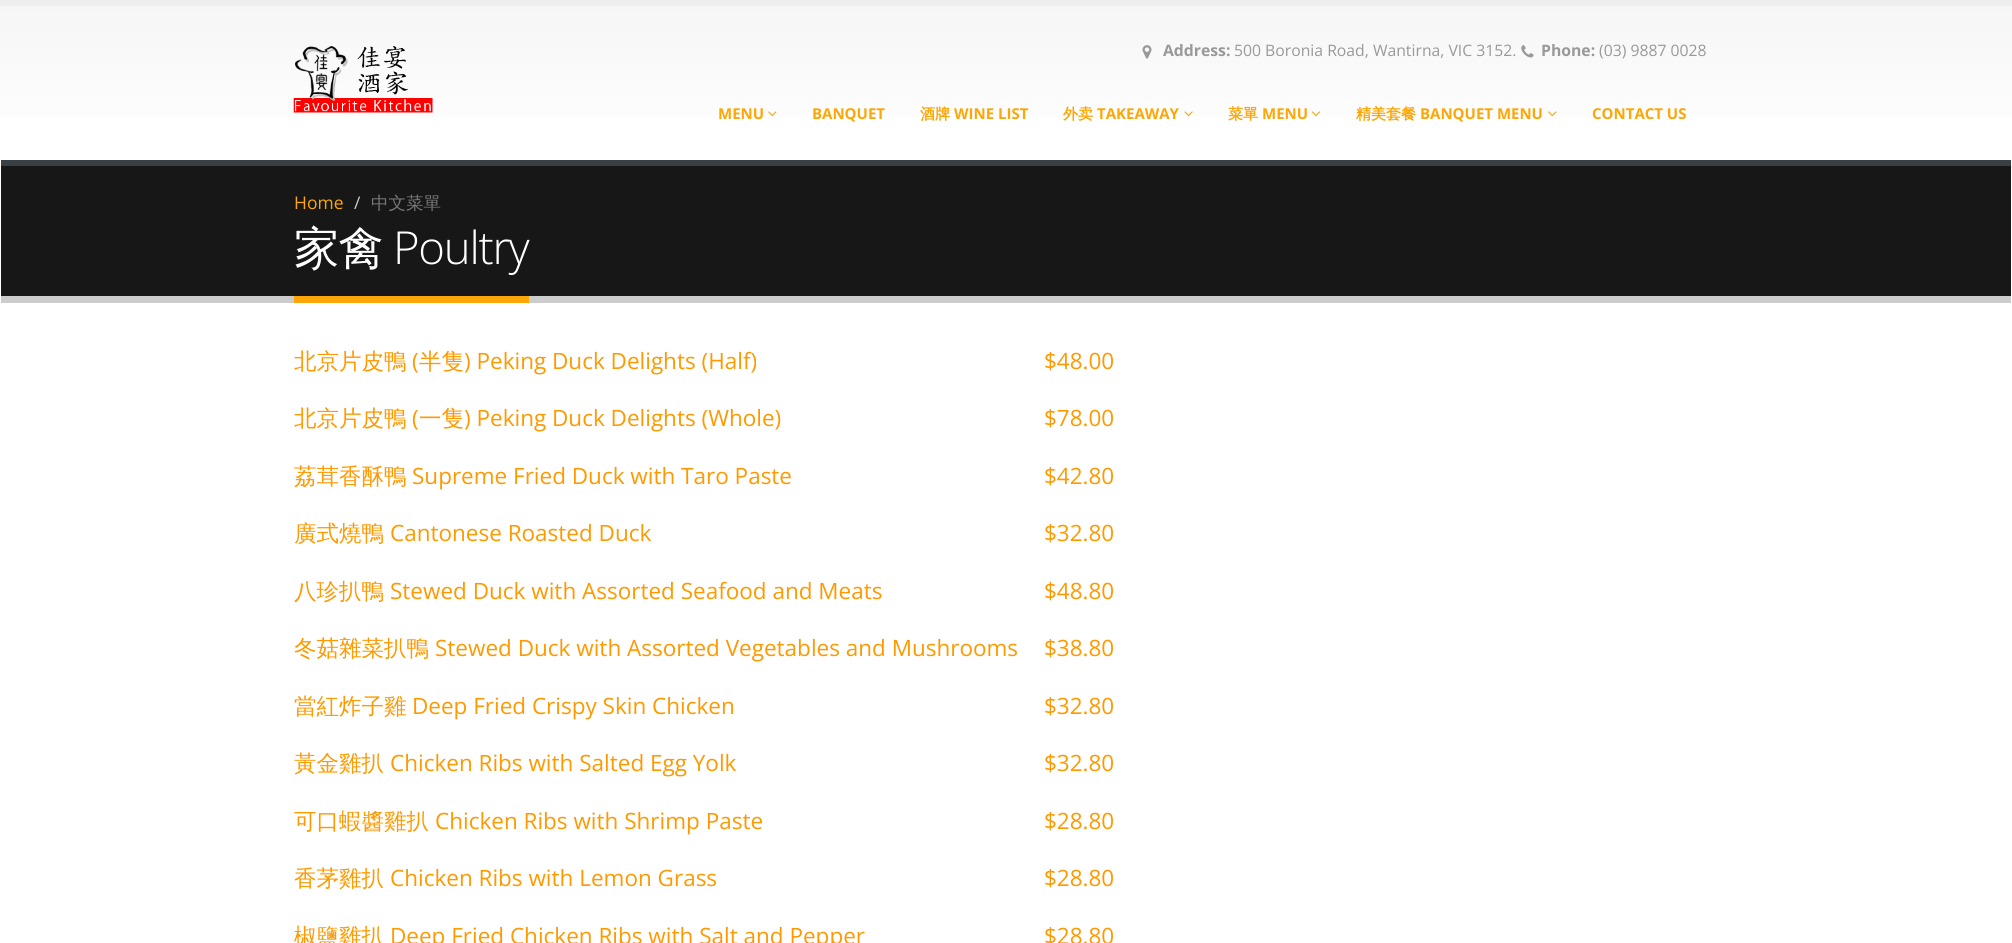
import math
import cairo


def write_spaced(ctx, x, y, s, letter, word):
	ctx.move_to(x, y)
	for ch in s:
		ctx.show_text(ch)
		ctx.rel_move_to(letter + word * (ch == ' '), 0)

def paste(ctx, path, x, y, w, h):
	ctx.save()
	ctx.set_source_surface(cairo.ImageSurface.create_from_png(path), x, y)
	ctx.rectangle(x, y, w, h)
	ctx.fill()
	ctx.restore()

def draw(ctx):
	ctx.set_source_rgb(1, 1, 1)
	ctx.paint()
	gradient = cairo.LinearGradient(1006, 6.2, 1006, 159)
	gradient.add_color_stop_rgba(0, 0.965, 0.965, 0.965, 1)
	gradient.add_color_stop_rgba(1, 1, 1, 1, 1)
	ctx.set_source(gradient)
	ctx.rectangle(0, 6, 2012, 111)
	ctx.fill()
	ctx.set_source_rgb(0.929, 0.929, 0.929)
	ctx.rectangle(0, 0, 2012, 6)
	ctx.fill()
	paste(ctx, 'media/1.png', 293, 46, 140, 67)
	paste(ctx, 'media/2.png', 1142, 45, 10, 14)
	ctx.select_font_face('Open Sans', cairo.FONT_SLANT_NORMAL, cairo.FONT_WEIGHT_BOLD)
	ctx.set_font_size(15.75)
	ctx.set_source_rgb(0.6, 0.6, 0.6)
	ctx.move_to(1163, 56)
	ctx.show_text('Address:')
	ctx.select_font_face('Open Sans')
	ctx.move_to(1234, 56)
	ctx.show_text('500 Boronia Road, Wantirna, VIC 3152.')
	paste(ctx, 'media/3.png', 1521, 45, 13, 13)
	ctx.select_font_face('Open Sans', cairo.FONT_SLANT_NORMAL, cairo.FONT_WEIGHT_BOLD)
	ctx.move_to(1541, 56)
	ctx.show_text('Phone:')
	ctx.select_font_face('Open Sans')
	ctx.move_to(1599, 56)
	ctx.show_text('(03) 9887 0028')
	ctx.select_font_face('Open Sans', cairo.FONT_SLANT_NORMAL, cairo.FONT_WEIGHT_BOLD)
	ctx.set_font_size(15)
	ctx.set_source_rgb(0.988, 0.655, 0.031)
	ctx.move_to(718, 119)
	ctx.show_text('MENU')
	paste(ctx, 'media/4.png', 768, 111, 9, 6)
	ctx.move_to(812, 119)
	ctx.show_text('BANQUET')
	ctx.select_font_face('WenQuanYi Zen Hei', cairo.FONT_SLANT_NORMAL, cairo.FONT_WEIGHT_BOLD)
	ctx.move_to(920, 119)
	ctx.show_text('酒牌')
	ctx.select_font_face('Open Sans', cairo.FONT_SLANT_NORMAL, cairo.FONT_WEIGHT_BOLD)
	ctx.move_to(954, 119)
	ctx.show_text('WINE LIST')
	ctx.select_font_face('WenQuanYi Zen Hei', cairo.FONT_SLANT_NORMAL, cairo.FONT_WEIGHT_BOLD)
	ctx.move_to(1063, 119)
	ctx.show_text('外卖')
	ctx.select_font_face('Open Sans', cairo.FONT_SLANT_NORMAL, cairo.FONT_WEIGHT_BOLD)
	ctx.move_to(1097, 119)
	ctx.show_text('TAKEAWAY')
	paste(ctx, 'media/5.png', 1184, 111, 9, 6)
	ctx.select_font_face('WenQuanYi Zen Hei', cairo.FONT_SLANT_NORMAL, cairo.FONT_WEIGHT_BOLD)
	ctx.move_to(1228, 119)
	ctx.show_text('菜單')
	ctx.select_font_face('Open Sans', cairo.FONT_SLANT_NORMAL, cairo.FONT_WEIGHT_BOLD)
	ctx.move_to(1262, 119)
	ctx.show_text('MENU')
	paste(ctx, 'media/6.png', 1312, 111, 9, 6)
	ctx.select_font_face('WenQuanYi Zen Hei', cairo.FONT_SLANT_NORMAL, cairo.FONT_WEIGHT_BOLD)
	ctx.move_to(1356, 119)
	ctx.show_text('精美套餐')
	ctx.select_font_face('Open Sans', cairo.FONT_SLANT_NORMAL, cairo.FONT_WEIGHT_BOLD)
	ctx.move_to(1420, 119)
	ctx.show_text('BANQUET MENU')
	paste(ctx, 'media/4.png', 1548, 111, 9, 6)
	ctx.move_to(1592, 119)
	ctx.show_text('CONTACT US')
	ctx.set_source_rgb(0.09, 0.09, 0.09)
	ctx.rectangle(1, 166, 2010, 130)
	ctx.fill()
	ctx.set_source_rgb(0.22, 0.251, 0.271)
	ctx.rectangle(1, 160, 2010, 6)
	ctx.fill()
	ctx.set_source_rgb(0.8, 0.8, 0.8)
	ctx.rectangle(1, 296, 2010, 7)
	ctx.fill()
	ctx.select_font_face('Open Sans')
	ctx.set_font_size(17.5)
	ctx.set_source_rgb(0.988, 0.655, 0.031)
	ctx.move_to(294, 209)
	ctx.show_text('Home')
	ctx.set_source_rgb(0.8, 0.8, 0.8)
	ctx.move_to(354, 209)
	ctx.show_text('/')
	ctx.select_font_face('WenQuanYi Zen Hei Medium')
	ctx.set_source_rgb(0.467, 0.467, 0.467)
	ctx.move_to(371, 209)
	ctx.show_text('中文菜單')
	ctx.set_source_rgb(0.988, 0.655, 0.031)
	ctx.rectangle(294, 296, 235, 7)
	ctx.fill()
	ctx.set_font_size(45.5)
	ctx.set_source_rgb(1, 1, 1)
	write_spaced(ctx, 294, 264, '家禽', -1.25, 0)
	ctx.select_font_face('Open Sans Light')
	write_spaced(ctx, 393, 264, 'Poultry', -1.25, 0)
	ctx.select_font_face('WenQuanYi Zen Hei Medium')
	ctx.set_font_size(22.5)
	ctx.set_source_rgb(1, 0.6, 0)
	ctx.move_to(294, 369)
	ctx.show_text('北京片皮鴨')
	ctx.select_font_face('Open Sans')
	ctx.move_to(412, 369)
	ctx.show_text('(')
	ctx.select_font_face('WenQuanYi Zen Hei Medium')
	ctx.move_to(419, 369)
	ctx.show_text('半隻')
	ctx.select_font_face('Open Sans')
	ctx.move_to(464, 369)
	ctx.show_text(') Peking Duck Delights (Half)')
	ctx.move_to(1044, 369)
	ctx.show_text('$48.00')
	ctx.select_font_face('WenQuanYi Zen Hei Medium')
	ctx.move_to(294, 426)
	ctx.show_text('北京片皮鴨')
	ctx.select_font_face('Open Sans')
	ctx.move_to(412, 426)
	ctx.show_text('(')
	ctx.select_font_face('WenQuanYi Zen Hei Medium')
	ctx.move_to(419, 426)
	ctx.show_text('一隻')
	ctx.select_font_face('Open Sans')
	ctx.move_to(464, 426)
	ctx.show_text(') Peking Duck Delights (Whole)')
	ctx.move_to(1044, 426)
	ctx.show_text('$78.00')
	ctx.select_font_face('WenQuanYi Zen Hei Medium')
	ctx.move_to(294, 484)
	ctx.show_text('荔茸香酥鴨')
	ctx.select_font_face('Open Sans')
	ctx.move_to(412, 484)
	ctx.show_text('Supreme Fried Duck with Taro Paste')
	ctx.move_to(1044, 484)
	ctx.show_text('$42.80')
	ctx.select_font_face('WenQuanYi Zen Hei Medium')
	ctx.move_to(294, 541)
	ctx.show_text('廣式燒鴨')
	ctx.select_font_face('Open Sans')
	ctx.move_to(390, 541)
	ctx.show_text('Cantonese Roasted Duck')
	ctx.move_to(1044, 541)
	ctx.show_text('$32.80')
	ctx.select_font_face('WenQuanYi Zen Hei Medium')
	ctx.move_to(294, 599)
	ctx.show_text('八珍扒鴨')
	ctx.select_font_face('Open Sans')
	ctx.move_to(390, 599)
	ctx.show_text('Stewed Duck with Assorted Seafood and Meats')
	ctx.move_to(1044, 599)
	ctx.show_text('$48.80')
	ctx.select_font_face('WenQuanYi Zen Hei Medium')
	ctx.move_to(294, 656)
	ctx.show_text('冬菇雜菜扒鴨')
	ctx.select_font_face('Open Sans')
	ctx.move_to(435, 656)
	ctx.show_text('Stewed Duck with Assorted Vegetables and Mushrooms')
	ctx.move_to(1044, 656)
	ctx.show_text('$38.80')
	ctx.select_font_face('WenQuanYi Zen Hei Medium')
	ctx.move_to(294, 714)
	ctx.show_text('當紅炸子雞')
	ctx.select_font_face('Open Sans')
	ctx.move_to(412, 714)
	ctx.show_text('Deep Fried Crispy Skin Chicken')
	ctx.move_to(1044, 714)
	ctx.show_text('$32.80')
	ctx.select_font_face('WenQuanYi Zen Hei Medium')
	ctx.move_to(294, 771)
	ctx.show_text('黃金雞扒')
	ctx.select_font_face('Open Sans')
	ctx.move_to(390, 771)
	ctx.show_text('Chicken Ribs with Salted Egg Yolk')
	ctx.move_to(1044, 771)
	ctx.show_text('$32.80')
	ctx.select_font_face('WenQuanYi Zen Hei Medium')
	ctx.move_to(294, 829)
	ctx.show_text('可口蝦醬雞扒')
	ctx.select_font_face('Open Sans')
	ctx.move_to(435, 829)
	ctx.show_text('Chicken Ribs with Shrimp Paste')
	ctx.move_to(1044, 829)
	ctx.show_text('$28.80')
	ctx.select_font_face('WenQuanYi Zen Hei Medium')
	ctx.move_to(294, 886)
	ctx.show_text('香茅雞扒')
	ctx.select_font_face('Open Sans')
	ctx.move_to(390, 886)
	ctx.show_text('Chicken Ribs with Lemon Grass')
	ctx.move_to(1044, 886)
	ctx.show_text('$28.80')
	ctx.select_font_face('WenQuanYi Zen Hei Medium')
	ctx.move_to(294, 944)
	ctx.show_text('椒鹽雞扒')
	ctx.select_font_face('Open Sans')
	ctx.move_to(390, 944)
	ctx.show_text('Deep Fried Chicken Ribs with Salt and Pepper')
	ctx.move_to(1044, 944)
	ctx.show_text('$28.80')


surface = cairo.ImageSurface(cairo.FORMAT_RGB24, 2012, 943)
ctx = cairo.Context(surface)
options = cairo.FontOptions()
options.set_hint_metrics(cairo.HINT_METRICS_OFF)
options.set_hint_style(cairo.HINT_STYLE_NONE)
ctx.set_font_options(options)
ctx.set_miter_limit(4)
draw(ctx)
surface.write_to_png('image.png')
